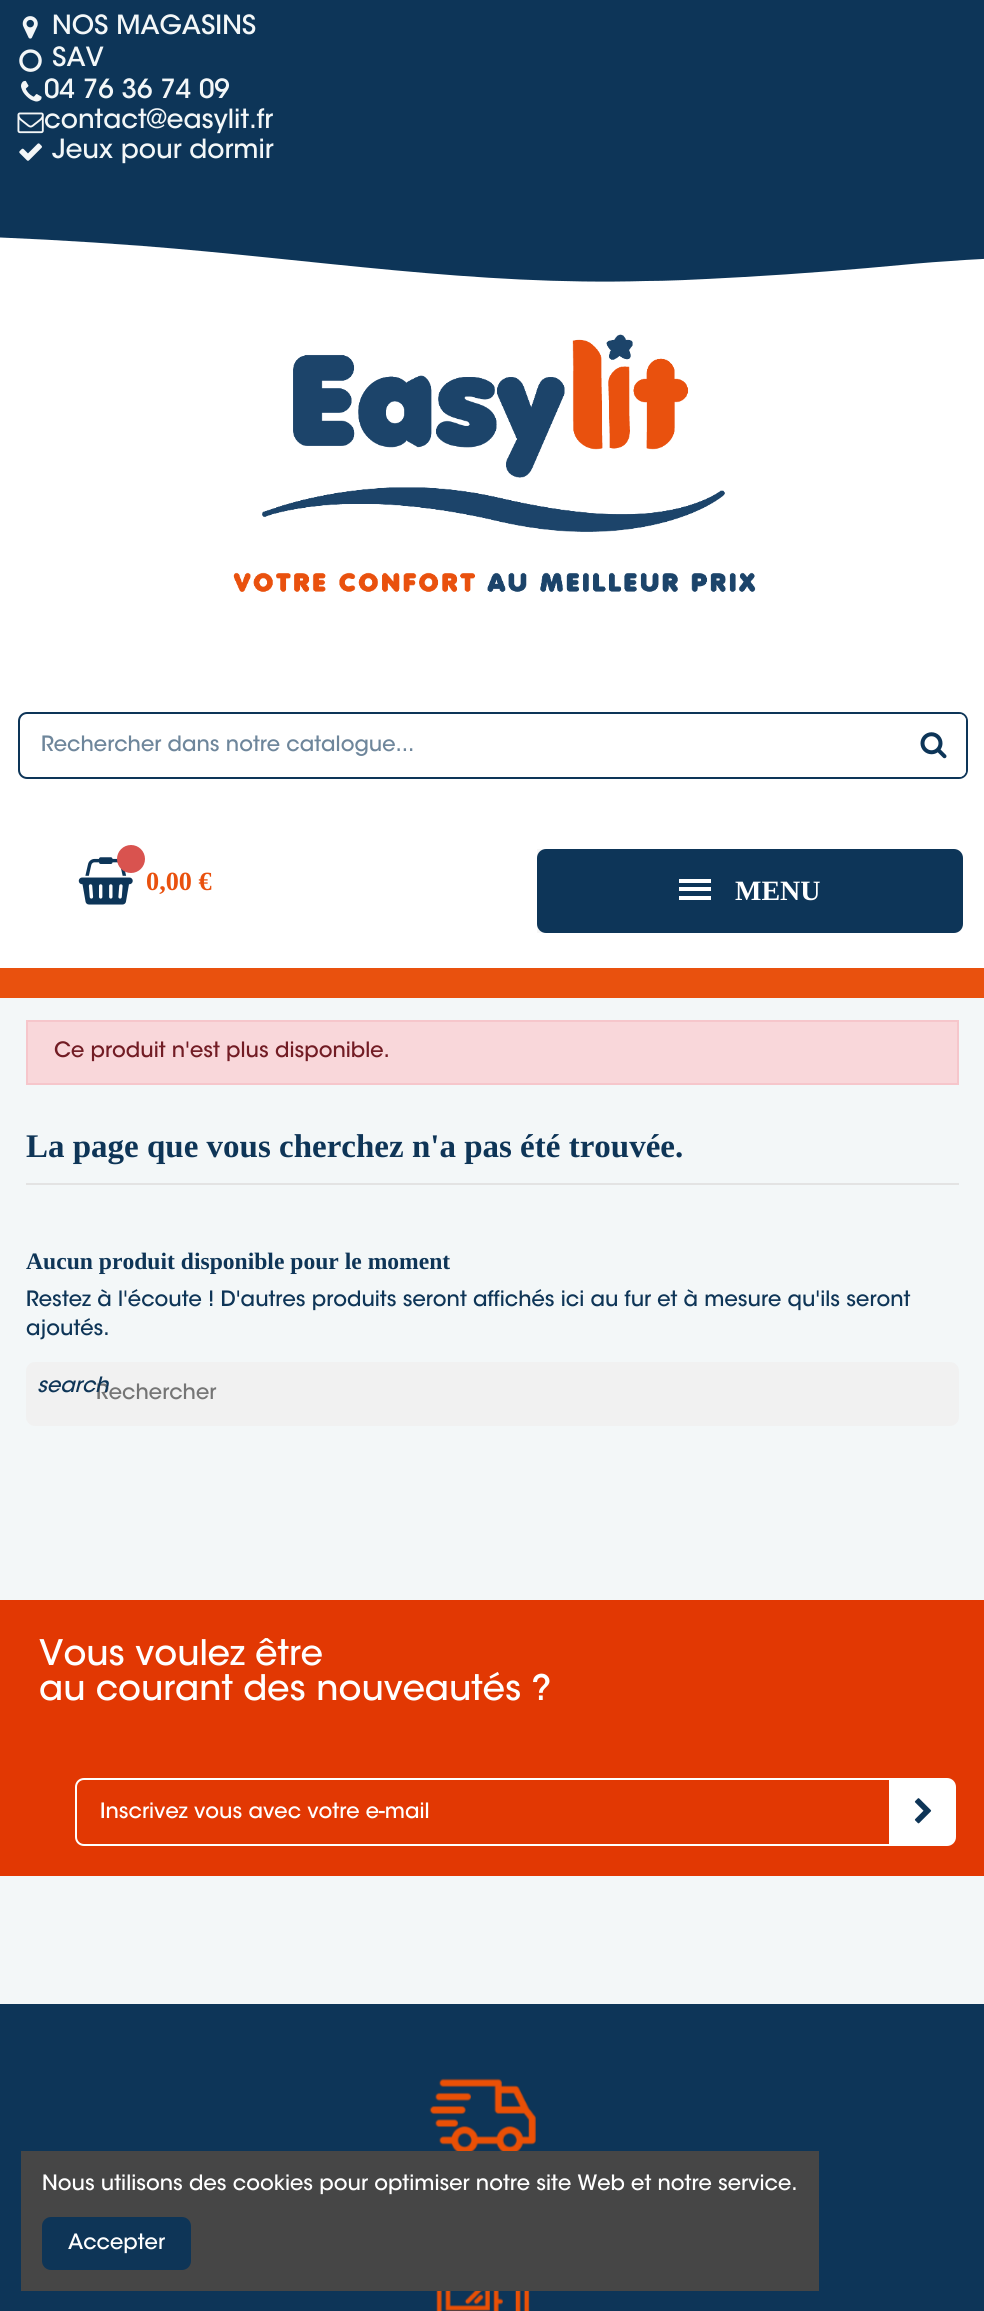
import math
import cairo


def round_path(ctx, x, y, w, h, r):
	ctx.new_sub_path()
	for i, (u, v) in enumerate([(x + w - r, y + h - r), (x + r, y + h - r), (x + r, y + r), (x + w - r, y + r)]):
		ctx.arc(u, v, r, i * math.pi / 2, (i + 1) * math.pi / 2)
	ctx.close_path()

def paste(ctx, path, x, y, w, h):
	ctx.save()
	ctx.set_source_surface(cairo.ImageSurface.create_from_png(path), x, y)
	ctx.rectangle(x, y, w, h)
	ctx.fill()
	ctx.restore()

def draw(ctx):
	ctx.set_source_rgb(0.953, 0.965, 0.969)
	ctx.paint()
	ctx.set_source_rgb(0.051, 0.208, 0.345)
	ctx.rectangle(0, 0, 984, 282)
	ctx.fill()
	paste(ctx, 'media/1.png', 22, 16, 16, 23)
	ctx.select_font_face('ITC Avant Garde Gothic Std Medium')
	ctx.set_font_size(26.25)
	ctx.set_source_rgb(0.953, 0.965, 0.969)
	ctx.move_to(52, 34)
	ctx.show_text('NOS MAGASINS')
	paste(ctx, 'media/2.png', 19, 49, 23, 23)
	ctx.move_to(52, 66)
	ctx.show_text('SAV')
	paste(ctx, 'media/3.png', 21, 80, 21, 22)
	ctx.move_to(44, 98)
	ctx.show_text('04 76 36 74 09')
	paste(ctx, 'media/4.png', 17, 112, 27, 22)
	ctx.move_to(44, 128)
	ctx.show_text('contact@easylit.fr')
	paste(ctx, 'media/5.png', 19, 143, 23, 18)
	ctx.move_to(52, 158)
	ctx.show_text('Jeux pour dormir')
	ctx.set_source_rgb(1, 1, 1)
	ctx.new_path()
	ctx.move_to(646, 281)
	ctx.curve_to(477, 286, 311, 259, 143, 246)
	ctx.curve_to(13, 236, -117, 232, -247, 235)
	ctx.curve_to(-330, 237, -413, 241, -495, 249)
	ctx.line_to(-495, 284)
	ctx.line_to(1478, 284)
	ctx.line_to(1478, 269)
	ctx.curve_to(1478, 269, 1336, 253, 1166, 254)
	ctx.curve_to(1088, 254, 983, 257, 901, 265)
	ctx.curve_to(859, 269, 798, 274, 744, 277)
	ctx.curve_to(690, 280, 666, 281, 646, 281)
	ctx.close_path()
	ctx.fill()
	ctx.rectangle(0, 284, 984, 684)
	ctx.fill()
	paste(ctx, 'media/6.png', 233, 334, 523, 258)
	round_path(ctx, 19, 713, 948, 65, 8)
	ctx.set_source_rgb(0.051, 0.208, 0.345)
	ctx.stroke()
	ctx.set_font_size(21)
	ctx.set_source_rgb(0.431, 0.525, 0.608)
	ctx.move_to(41, 751)
	ctx.show_text('Rechercher dans notre catalogue...')
	ctx.set_source_rgb(1, 1, 1)
	ctx.new_path()
	ctx.move_to(900, 714)
	ctx.line_to(959, 714)
	ctx.curve_to(963, 714, 966, 717, 966, 721)
	ctx.line_to(966, 770)
	ctx.curve_to(966, 774, 963, 777, 959, 777)
	ctx.line_to(900, 777)
	ctx.close_path()
	ctx.fill()
	paste(ctx, 'media/7.png', 920, 732, 27, 27)
	paste(ctx, 'media/8.png', 78, 857, 55, 48)
	ctx.set_source_rgb(0.851, 0.325, 0.31)
	ctx.arc(131, 859, 14, 0, 2 * math.pi)
	ctx.fill()
	ctx.select_font_face('Liberation Serif', cairo.FONT_SLANT_NORMAL, cairo.FONT_WEIGHT_BOLD)
	ctx.set_font_size(26.25)
	ctx.set_source_rgb(0.914, 0.318, 0.055)
	ctx.move_to(146, 890)
	ctx.show_text('0,00 €')
	ctx.set_source_rgb(0.965, 0.965, 0.965)
	ctx.rectangle(537, 849, 9, 84)
	ctx.fill()
	ctx.set_source_rgb(0.051, 0.208, 0.345)
	round_path(ctx, 537, 849, 426, 84, 9)
	ctx.fill()
	ctx.set_source_rgb(1, 1, 1)
	ctx.rectangle(679, 879, 32, 4)
	ctx.rectangle(679, 887, 32, 4)
	ctx.rectangle(679, 896, 32, 4)
	ctx.fill()
	ctx.set_font_size(28)
	ctx.move_to(735, 900)
	ctx.show_text('MENU')
	ctx.set_source_rgb(0.914, 0.318, 0.055)
	ctx.rectangle(0, 968, 984, 30)
	ctx.fill()
	ctx.set_source_rgb(0.973, 0.843, 0.855)
	ctx.rectangle(27, 1021, 931, 63)
	ctx.fill_preserve()
	ctx.set_source_rgb(0.961, 0.776, 0.796)
	ctx.stroke()
	ctx.select_font_face('ITC Avant Garde Gothic Std Medium')
	ctx.set_font_size(21)
	ctx.set_source_rgb(0.447, 0.11, 0.141)
	ctx.move_to(54, 1057)
	ctx.show_text('Ce produit n\'est plus disponible.')
	ctx.set_source_rgb(0.89, 0.89, 0.89)
	ctx.rectangle(26, 1183, 933, 2)
	ctx.fill()
	ctx.select_font_face('Liberation Serif', cairo.FONT_SLANT_NORMAL, cairo.FONT_WEIGHT_BOLD)
	ctx.set_font_size(33)
	ctx.set_source_rgb(0.055, 0.208, 0.341)
	ctx.move_to(26, 1157)
	ctx.show_text('La page que vous cherchez n\'a pas été trouvée.')
	ctx.set_font_size(23.6)
	ctx.move_to(26, 1269)
	ctx.show_text('Aucun produit disponible pour le moment')
	ctx.select_font_face('ITC Avant Garde Gothic Std Medium')
	ctx.set_font_size(21)
	ctx.move_to(26, 1306)
	ctx.show_text('Restez à l\'écoute ! D\'autres produits seront affichés ici au fur et à mesure qu\'ils seront')
	ctx.move_to(26, 1335)
	ctx.show_text('ajoutés.')
	ctx.set_source_rgb(0.945, 0.945, 0.945)
	round_path(ctx, 26, 1362, 933, 64, 9)
	ctx.fill()
	ctx.set_source_rgb(0.459, 0.459, 0.459)
	ctx.move_to(96, 1399)
	ctx.show_text('Rechercher')
	ctx.select_font_face('ITC Avant Garde Gothic Std Medium', cairo.FONT_SLANT_ITALIC)
	ctx.set_source_rgb(0.055, 0.208, 0.341)
	ctx.move_to(37, 1392)
	ctx.show_text('search')
	ctx.set_source_rgb(0.886, 0.22, 0.012)
	ctx.rectangle(0, 1600, 984, 276)
	ctx.fill()
	ctx.select_font_face('ITC Avant Garde Gothic Std Medium')
	ctx.set_font_size(35)
	ctx.set_source_rgb(1, 1, 1)
	ctx.move_to(39, 1665)
	ctx.show_text('Vous voulez être')
	ctx.move_to(39, 1700)
	ctx.show_text('au courant des nouveautés ?')
	ctx.new_path()
	ctx.move_to(84, 1779)
	ctx.line_to(890, 1779)
	ctx.line_to(890, 1845)
	ctx.line_to(84, 1845)
	ctx.curve_to(79.5, 1845, 76, 1841.5, 76, 1837)
	ctx.line_to(76, 1787)
	ctx.curve_to(76, 1782.5, 79.5, 1779, 84, 1779)
	ctx.close_path()
	ctx.stroke()
	ctx.set_font_size(21)
	ctx.move_to(100, 1818)
	ctx.show_text('Inscrivez vous avec votre e-mail')
	ctx.new_path()
	ctx.move_to(891, 1778)
	ctx.line_to(947, 1778)
	ctx.curve_to(952, 1778, 956, 1782, 956, 1787)
	ctx.line_to(956, 1837)
	ctx.curve_to(956, 1842, 952, 1846, 947, 1846)
	ctx.line_to(891, 1846)
	ctx.close_path()
	ctx.fill()
	paste(ctx, 'media/9.png', 914, 1798, 18, 26)
	ctx.set_source_rgb(0.051, 0.208, 0.345)
	ctx.rectangle(0, 2004, 984, 307)
	ctx.fill()
	paste(ctx, 'media/10.png', 429, 2078, 107, 73)
	paste(ctx, 'media/11.png', 436, 2291, 94, 20)
	ctx.set_source_rgb(0.275, 0.275, 0.275)
	ctx.rectangle(21, 2151, 798, 140)
	ctx.fill()
	ctx.set_source_rgb(1, 1, 1)
	ctx.move_to(42, 2190)
	ctx.show_text('Nous utilisons des cookies pour optimiser notre site Web et notre service.')
	ctx.set_source_rgb(0.055, 0.208, 0.341)
	round_path(ctx, 42, 2217, 149, 53, 9)
	ctx.fill()
	ctx.set_source_rgb(1, 1, 1)
	ctx.move_to(68, 2249)
	ctx.show_text('Accepter')


surface = cairo.ImageSurface(cairo.FORMAT_RGB24, 984, 2311)
ctx = cairo.Context(surface)
options = cairo.FontOptions()
options.set_hint_metrics(cairo.HINT_METRICS_OFF)
options.set_hint_style(cairo.HINT_STYLE_NONE)
ctx.set_font_options(options)
ctx.set_miter_limit(4)
draw(ctx)
surface.write_to_png('image.png')
